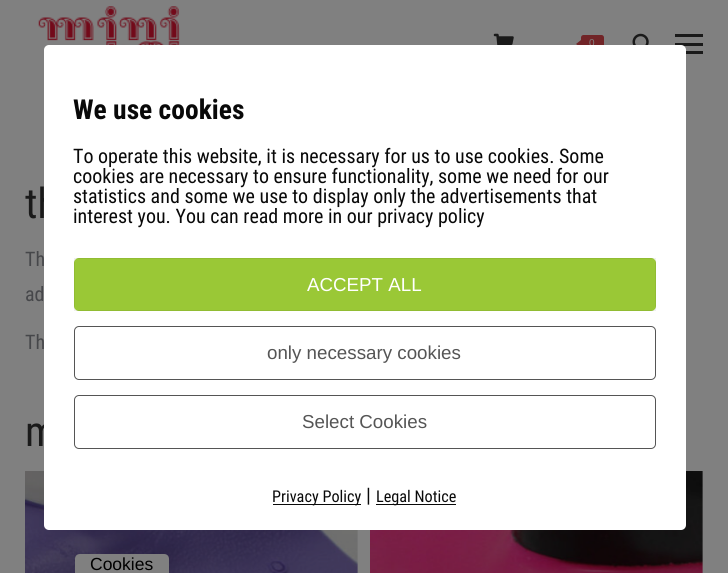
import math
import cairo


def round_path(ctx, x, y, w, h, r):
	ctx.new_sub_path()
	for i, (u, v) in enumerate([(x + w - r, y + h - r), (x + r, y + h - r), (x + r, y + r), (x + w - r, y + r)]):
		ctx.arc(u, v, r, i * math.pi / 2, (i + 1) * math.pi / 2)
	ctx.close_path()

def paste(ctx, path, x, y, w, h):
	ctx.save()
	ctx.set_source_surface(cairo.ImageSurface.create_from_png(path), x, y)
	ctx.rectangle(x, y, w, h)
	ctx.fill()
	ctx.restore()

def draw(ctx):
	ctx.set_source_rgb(0.502, 0.502, 0.502)
	ctx.paint()
	paste(ctx, 'media/1.png', 38, 6, 142, 39)
	paste(ctx, 'media/2.png', 493, 33, 21, 12)
	ctx.set_source_rgb(0.443, 0.141, 0.153)
	round_path(ctx, 581, 35, 23, 18, 2.5)
	ctx.fill()
	ctx.new_path()
	ctx.move_to(581, 40)
	ctx.line_to(581, 47.5)
	ctx.line_to(576, 44)
	ctx.close_path()
	ctx.fill()
	ctx.select_font_face('Liberation Sans')
	ctx.set_font_size(10)
	ctx.set_source_rgb(0.502, 0.502, 0.502)
	ctx.move_to(589, 46)
	ctx.show_text('0')
	paste(ctx, 'media/3.png', 632, 33, 17, 12)
	ctx.set_source_rgb(0.102, 0.102, 0.102)
	ctx.rectangle(675, 34, 28, 3)
	ctx.rectangle(675, 43, 28, 3)
	ctx.rectangle(686, 51, 17, 3)
	ctx.fill()
	ctx.select_font_face('Roboto Condensed')
	ctx.set_font_size(42)
	ctx.move_to(25, 218)
	ctx.show_text('th')
	ctx.set_font_size(20)
	ctx.set_source_rgb(0.275, 0.278, 0.29)
	for x, y, s in [
		(25, 266, 'Th'),
		(25, 301, 'ad'),
		(25, 349, 'Th'),
	]:
		ctx.move_to(x, y)
		ctx.show_text(s)
	ctx.set_font_size(42)
	ctx.set_source_rgb(0.102, 0.102, 0.102)
	ctx.move_to(25, 446)
	ctx.show_text('m')
	paste(ctx, 'media/4.png', 25, 471, 333, 102)
	paste(ctx, 'media/5.png', 370, 471, 333, 102)
	ctx.set_source_rgb(1, 1, 1)
	round_path(ctx, 44, 45, 642, 485, 5)
	ctx.fill()
	ctx.select_font_face('Roboto Condensed', cairo.FONT_SLANT_NORMAL, cairo.FONT_WEIGHT_BOLD)
	ctx.set_font_size(27.5)
	ctx.set_source_rgb(0.039, 0.039, 0.039)
	ctx.move_to(73, 119)
	ctx.show_text('We use cookies')
	ctx.select_font_face('Roboto Condensed')
	ctx.set_font_size(20)
	for x, y, s in [
		(73, 163, 'To operate this website, it is necessary for us to use cookies. Some'),
		(73, 183, 'cookies are necessary to ensure functionality, some we need for our'),
		(73, 203, 'statistics and some we use to display only the advertisements that'),
		(73, 223, 'interest you. You can read more in our privacy policy'),
	]:
		ctx.move_to(x, y)
		ctx.show_text(s)
	ctx.set_source_rgb(0.604, 0.784, 0.212)
	round_path(ctx, 74, 258, 582, 53, 5)
	ctx.fill()
	ctx.rectangle(74.5, 258.5, 581, 52)
	ctx.set_source_rgba(0, 0, 0, 0.06)
	ctx.set_line_width(1)
	ctx.stroke()
	ctx.select_font_face('Liberation Sans')
	ctx.set_font_size(18.75)
	ctx.set_source_rgb(1, 1, 1)
	ctx.move_to(307, 291)
	ctx.show_text('ACCEPT ALL')
	round_path(ctx, 74.5, 326.5, 581, 53, 4.5)
	ctx.set_source_rgb(0.333, 0.333, 0.333)
	ctx.stroke()
	ctx.move_to(267, 359)
	ctx.show_text('only necessary cookies')
	round_path(ctx, 74.5, 395.5, 581, 53, 4.5)
	ctx.stroke()
	ctx.move_to(302, 428)
	ctx.show_text('Select Cookies')
	ctx.set_source_rgb(0.039, 0.039, 0.039)
	ctx.rectangle(273, 504, 88, 1)
	ctx.fill()
	ctx.select_font_face('Roboto Condensed')
	ctx.set_font_size(16.25)
	ctx.move_to(272, 502)
	ctx.show_text('Privacy Policy')
	ctx.set_font_size(20)
	ctx.move_to(366, 502)
	ctx.show_text('|')
	ctx.rectangle(376, 504, 80, 1)
	ctx.fill()
	ctx.set_font_size(16.25)
	ctx.move_to(376, 502)
	ctx.show_text('Legal Notice')
	ctx.set_source_rgb(0.502, 0.502, 0.502)
	ctx.new_path()
	ctx.move_to(80, 554)
	ctx.line_to(164, 554)
	ctx.curve_to(167, 554, 169, 556, 169, 559)
	ctx.line_to(169, 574)
	ctx.line_to(75, 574)
	ctx.line_to(75, 559)
	ctx.curve_to(75, 556, 77, 554, 80, 554)
	ctx.close_path()
	ctx.fill()
	ctx.select_font_face('Liberation Sans')
	ctx.set_font_size(17.5)
	ctx.set_source_rgb(0, 0, 0)
	ctx.move_to(90, 570)
	ctx.show_text('Cookies')


surface = cairo.ImageSurface(cairo.FORMAT_RGB24, 728, 573)
ctx = cairo.Context(surface)
options = cairo.FontOptions()
options.set_hint_metrics(cairo.HINT_METRICS_OFF)
options.set_hint_style(cairo.HINT_STYLE_NONE)
ctx.set_font_options(options)
ctx.set_miter_limit(4)
draw(ctx)
surface.write_to_png('image.png')
